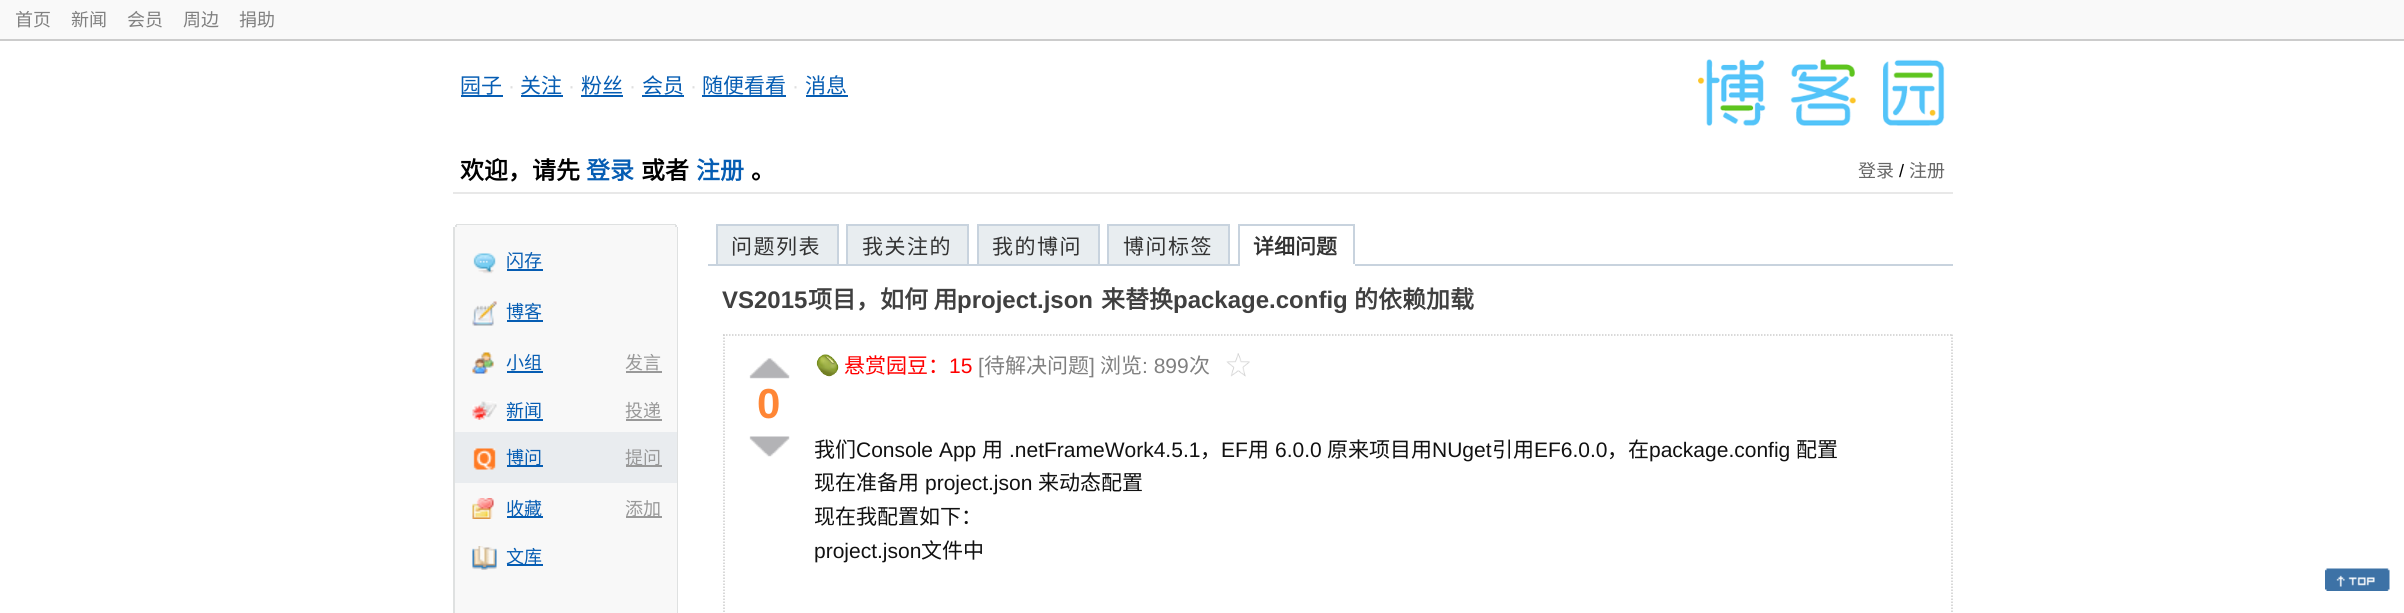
import math
import cairo


def write_spaced(ctx, x, y, s, letter, word):
	ctx.move_to(x, y)
	for ch in s:
		ctx.show_text(ch)
		ctx.rel_move_to(letter + word * (ch == ' '), 0)

def paste(ctx, path, x, y, w, h):
	ctx.save()
	ctx.set_source_surface(cairo.ImageSurface.create_from_png(path), x, y)
	ctx.rectangle(x, y, w, h)
	ctx.fill()
	ctx.restore()

def draw(ctx):
	ctx.set_source_rgb(1, 1, 1)
	ctx.paint()
	ctx.set_source_rgb(0.973, 0.973, 0.973)
	ctx.rectangle(0, 0, 2404, 39)
	ctx.fill()
	ctx.set_source_rgb(0.8, 0.8, 0.8)
	ctx.rectangle(0, 39, 2404, 2)
	ctx.fill()
	ctx.select_font_face('Noto Sans CJK SC')
	ctx.set_font_size(18)
	ctx.set_source_rgb(0.502, 0.502, 0.502)
	for x, y, s in [
		(15, 26, '首页'),
		(71, 26, '新闻'),
		(127, 26, '会员'),
		(183, 26, '周边'),
		(239, 26, '捐助'),
	]:
		ctx.move_to(x, y)
		ctx.show_text(s)
	ctx.set_source_rgb(0.91, 0.91, 0.91)
	ctx.rectangle(453, 192, 1500, 2)
	ctx.fill()
	ctx.set_font_size(21)
	ctx.set_source_rgb(0.027, 0.365, 0.702)
	ctx.move_to(460, 93)
	ctx.show_text('园子')
	ctx.rectangle(461, 95, 42, 2)
	ctx.fill()
	ctx.select_font_face('Liberation Sans')
	ctx.set_source_rgb(0.875, 0.875, 0.875)
	ctx.move_to(508, 93)
	ctx.show_text('·')
	ctx.select_font_face('Noto Sans CJK SC')
	ctx.set_source_rgb(0.027, 0.365, 0.702)
	ctx.move_to(520, 93)
	ctx.show_text('关注')
	ctx.rectangle(521, 95, 42, 2)
	ctx.fill()
	ctx.select_font_face('Liberation Sans')
	ctx.set_source_rgb(0.875, 0.875, 0.875)
	ctx.move_to(568, 93)
	ctx.show_text('·')
	ctx.select_font_face('Noto Sans CJK SC')
	ctx.set_source_rgb(0.027, 0.365, 0.702)
	ctx.move_to(581, 93)
	ctx.show_text('粉丝')
	ctx.rectangle(581, 95, 42, 2)
	ctx.fill()
	ctx.select_font_face('Liberation Sans')
	ctx.set_source_rgb(0.875, 0.875, 0.875)
	ctx.move_to(629, 93)
	ctx.show_text('·')
	ctx.select_font_face('Noto Sans CJK SC')
	ctx.set_source_rgb(0.027, 0.365, 0.702)
	ctx.move_to(642, 93)
	ctx.show_text('会员')
	ctx.rectangle(642, 95, 42, 2)
	ctx.fill()
	ctx.select_font_face('Liberation Sans')
	ctx.set_source_rgb(0.875, 0.875, 0.875)
	ctx.move_to(690, 93)
	ctx.show_text('·')
	ctx.select_font_face('Noto Sans CJK SC')
	ctx.set_source_rgb(0.027, 0.365, 0.702)
	ctx.move_to(702, 93)
	ctx.show_text('随便看看')
	ctx.rectangle(702, 95, 84, 2)
	ctx.fill()
	ctx.select_font_face('Liberation Sans')
	ctx.set_source_rgb(0.875, 0.875, 0.875)
	ctx.move_to(792, 93)
	ctx.show_text('·')
	ctx.select_font_face('Noto Sans CJK SC')
	ctx.set_source_rgb(0.027, 0.365, 0.702)
	ctx.move_to(805, 93)
	ctx.show_text('消息')
	ctx.rectangle(806, 95, 42, 2)
	ctx.fill()
	paste(ctx, 'media/1.png', 1698, 59, 247, 67)
	ctx.select_font_face('Noto Sans CJK SC', cairo.FONT_SLANT_NORMAL, cairo.FONT_WEIGHT_BOLD)
	ctx.set_font_size(24)
	ctx.set_source_rgb(0, 0, 0)
	ctx.move_to(460, 179)
	ctx.show_text('欢迎，请先')
	ctx.set_source_rgb(0.027, 0.365, 0.702)
	ctx.move_to(586, 179)
	ctx.show_text('登录')
	ctx.set_source_rgb(0, 0, 0)
	ctx.move_to(641, 179)
	ctx.show_text('或者')
	ctx.set_source_rgb(0.027, 0.365, 0.702)
	ctx.move_to(696, 179)
	ctx.show_text('注册')
	ctx.set_source_rgb(0, 0, 0)
	ctx.move_to(751, 179)
	ctx.show_text('。')
	ctx.select_font_face('Noto Sans CJK SC')
	ctx.set_font_size(18)
	ctx.set_source_rgb(0.4, 0.4, 0.4)
	ctx.move_to(1858, 177)
	ctx.show_text('登录')
	ctx.select_font_face('Liberation Sans')
	ctx.set_source_rgb(0, 0, 0)
	ctx.move_to(1899, 177)
	ctx.show_text('/')
	ctx.select_font_face('Noto Sans CJK SC')
	ctx.set_source_rgb(0.4, 0.4, 0.4)
	ctx.move_to(1909, 177)
	ctx.show_text('注册')
	ctx.set_source_rgb(0.875, 0.882, 0.882)
	ctx.rectangle(456, 224, 220, 1)
	ctx.fill()
	ctx.set_source_rgb(0.969, 0.969, 0.969)
	ctx.rectangle(455, 225, 222, 2)
	ctx.fill()
	ctx.set_source_rgb(0.875, 0.882, 0.882)
	ctx.rectangle(675, 225, 2, 2)
	ctx.rectangle(455, 225, 2, 2)
	ctx.fill()
	ctx.set_source_rgb(0.969, 0.969, 0.969)
	ctx.rectangle(453, 227, 225, 1)
	ctx.fill()
	ctx.set_source_rgb(0.859, 0.871, 0.886)
	ctx.rectangle(677, 227, 1, 2)
	ctx.fill()
	ctx.set_source_rgb(0.875, 0.882, 0.882)
	ctx.rectangle(453, 227, 2, 386)
	ctx.fill()
	ctx.set_source_rgb(0.969, 0.969, 0.969)
	ctx.rectangle(455, 228, 222, 385)
	ctx.fill()
	ctx.set_source_rgb(0.875, 0.882, 0.882)
	ctx.rectangle(677, 228, 1, 385)
	ctx.fill()
	paste(ctx, 'media/2.png', 473, 253, 23, 21)
	ctx.set_source_rgb(0.027, 0.365, 0.702)
	ctx.move_to(506, 267)
	ctx.show_text('闪存')
	ctx.rectangle(507, 269, 36, 2)
	ctx.fill()
	paste(ctx, 'media/3.png', 472, 301, 25, 25)
	ctx.move_to(506, 318)
	ctx.show_text('博客')
	ctx.rectangle(507, 320, 36, 2)
	ctx.fill()
	paste(ctx, 'media/4.png', 472, 352, 22, 22)
	ctx.move_to(506, 369)
	ctx.show_text('小组')
	ctx.rectangle(507, 371, 36, 2)
	ctx.fill()
	ctx.set_source_rgb(0.6, 0.6, 0.6)
	ctx.move_to(625, 369)
	ctx.show_text('发言')
	ctx.rectangle(626, 371, 36, 2)
	ctx.fill()
	paste(ctx, 'media/5.png', 472, 401, 25, 19)
	ctx.set_source_rgb(0.027, 0.365, 0.702)
	ctx.move_to(506, 417)
	ctx.show_text('新闻')
	ctx.rectangle(507, 419, 36, 2)
	ctx.fill()
	ctx.set_source_rgb(0.6, 0.6, 0.6)
	ctx.move_to(625, 417)
	ctx.show_text('投递')
	ctx.rectangle(626, 419, 36, 2)
	ctx.fill()
	ctx.set_source_rgb(0.914, 0.925, 0.937)
	ctx.rectangle(455, 432, 222, 51)
	ctx.fill()
	paste(ctx, 'media/6.png', 473, 448, 23, 22)
	ctx.set_source_rgb(0.027, 0.365, 0.702)
	ctx.rectangle(507, 465, 36, 2)
	ctx.fill()
	ctx.move_to(506, 464)
	ctx.show_text('博问')
	ctx.set_source_rgb(0.6, 0.6, 0.6)
	ctx.rectangle(626, 465, 36, 2)
	ctx.fill()
	ctx.move_to(625, 464)
	ctx.show_text('提问')
	paste(ctx, 'media/7.png', 472, 498, 22, 21)
	ctx.set_source_rgb(0.027, 0.365, 0.702)
	ctx.rectangle(507, 516, 36, 2)
	ctx.fill()
	ctx.move_to(506, 515)
	ctx.show_text('收藏')
	ctx.set_source_rgb(0.6, 0.6, 0.6)
	ctx.rectangle(626, 516, 36, 2)
	ctx.fill()
	ctx.move_to(625, 515)
	ctx.show_text('添加')
	paste(ctx, 'media/8.png', 472, 546, 25, 24)
	ctx.set_source_rgb(0.027, 0.365, 0.702)
	ctx.rectangle(507, 564, 36, 2)
	ctx.fill()
	ctx.move_to(506, 563)
	ctx.show_text('文库')
	ctx.set_source_rgb(0.784, 0.827, 0.871)
	ctx.rectangle(708, 264, 1245, 2)
	ctx.fill()
	ctx.set_source_rgb(0.91, 0.929, 0.941)
	ctx.rectangle(717, 225, 121, 40)
	ctx.fill_preserve()
	ctx.set_source_rgb(0.784, 0.827, 0.871)
	ctx.stroke()
	ctx.set_font_size(21)
	ctx.set_source_rgb(0.2, 0.2, 0.2)
	write_spaced(ctx, 731, 254, '问题列表', 1.5, 0)
	ctx.set_source_rgb(0.91, 0.929, 0.941)
	ctx.rectangle(847, 225, 121, 40)
	ctx.fill_preserve()
	ctx.set_source_rgb(0.784, 0.827, 0.871)
	ctx.stroke()
	ctx.set_source_rgb(0.2, 0.2, 0.2)
	write_spaced(ctx, 862, 254, '我关注的', 1.5, 0)
	ctx.set_source_rgb(0.91, 0.929, 0.941)
	ctx.rectangle(978, 225, 121, 40)
	ctx.fill_preserve()
	ctx.set_source_rgb(0.784, 0.827, 0.871)
	ctx.stroke()
	ctx.set_source_rgb(0.2, 0.2, 0.2)
	write_spaced(ctx, 992, 254, '我的博问', 1.5, 0)
	ctx.set_source_rgb(0.91, 0.929, 0.941)
	ctx.rectangle(1108, 225, 121, 40)
	ctx.fill_preserve()
	ctx.set_source_rgb(0.784, 0.827, 0.871)
	ctx.stroke()
	ctx.set_source_rgb(0.2, 0.2, 0.2)
	write_spaced(ctx, 1123, 254, '博问标签', 1.5, 0)
	ctx.set_source_rgb(0.784, 0.827, 0.871)
	ctx.rectangle(1238, 224, 117, 2)
	ctx.rectangle(1353, 224, 2, 42)
	ctx.fill()
	ctx.set_source_rgb(1, 1, 1)
	ctx.rectangle(1238, 264, 117, 2)
	ctx.fill()
	ctx.set_source_rgb(0.784, 0.827, 0.871)
	ctx.rectangle(1238, 224, 2, 42)
	ctx.fill()
	ctx.select_font_face('Noto Sans CJK SC', cairo.FONT_SLANT_NORMAL, cairo.FONT_WEIGHT_BOLD)
	ctx.set_source_rgb(0.2, 0.2, 0.2)
	ctx.move_to(1253, 254)
	ctx.show_text('详细问题')
	ctx.select_font_face('Liberation Sans', cairo.FONT_SLANT_NORMAL, cairo.FONT_WEIGHT_BOLD)
	ctx.set_font_size(24)
	ctx.set_source_rgb(0.251, 0.251, 0.251)
	ctx.move_to(722, 308)
	ctx.show_text('VS2015')
	ctx.select_font_face('Noto Sans CJK SC', cairo.FONT_SLANT_NORMAL, cairo.FONT_WEIGHT_BOLD)
	ctx.move_to(808, 308)
	ctx.show_text('项目，如何 用')
	ctx.select_font_face('Liberation Sans', cairo.FONT_SLANT_NORMAL, cairo.FONT_WEIGHT_BOLD)
	ctx.move_to(957, 308)
	ctx.show_text('project.json')
	ctx.select_font_face('Noto Sans CJK SC', cairo.FONT_SLANT_NORMAL, cairo.FONT_WEIGHT_BOLD)
	ctx.move_to(1101, 308)
	ctx.show_text('来替换')
	ctx.select_font_face('Liberation Sans', cairo.FONT_SLANT_NORMAL, cairo.FONT_WEIGHT_BOLD)
	ctx.move_to(1173, 308)
	ctx.show_text('package.config')
	ctx.select_font_face('Noto Sans CJK SC', cairo.FONT_SLANT_NORMAL, cairo.FONT_WEIGHT_BOLD)
	ctx.move_to(1354, 308)
	ctx.show_text('的依赖加载')
	ctx.new_path()
	ctx.move_to(723, 335)
	ctx.line_to(1953, 335)
	ctx.set_source_rgb(0.8, 0.8, 0.8)
	ctx.set_line_width(1.5)
	ctx.set_dash([1.5, 1.5])
	ctx.stroke()
	ctx.new_path()
	ctx.move_to(1952, 334.5)
	ctx.line_to(1952, 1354.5)
	ctx.stroke()
	ctx.new_path()
	ctx.move_to(724, 334.5)
	ctx.line_to(724, 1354.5)
	ctx.stroke()
	paste(ctx, 'media/9.png', 749, 358, 41, 21)
	ctx.select_font_face('Liberation Sans', cairo.FONT_SLANT_NORMAL, cairo.FONT_WEIGHT_BOLD)
	ctx.set_font_size(42)
	ctx.set_source_rgb(1, 0.525, 0.208)
	ctx.move_to(757, 418)
	ctx.show_text('0')
	paste(ctx, 'media/10.png', 749, 436, 41, 21)
	paste(ctx, 'media/11.png', 816, 354, 23, 23)
	ctx.select_font_face('Noto Sans CJK SC')
	ctx.set_font_size(21)
	ctx.set_source_rgb(1, 0, 0)
	ctx.move_to(844, 373)
	ctx.show_text('悬赏园豆：')
	ctx.select_font_face('Liberation Sans')
	ctx.move_to(949, 373)
	ctx.show_text('15')
	ctx.set_source_rgb(0.502, 0.502, 0.502)
	ctx.move_to(978, 373)
	ctx.show_text('[')
	ctx.select_font_face('Noto Sans CJK SC')
	ctx.move_to(984, 373)
	ctx.show_text('待解决问题')
	ctx.select_font_face('Liberation Sans')
	ctx.move_to(1089, 373)
	ctx.show_text(']')
	ctx.select_font_face('Noto Sans CJK SC')
	ctx.move_to(1100, 373)
	ctx.show_text('浏览')
	ctx.select_font_face('Liberation Sans')
	ctx.move_to(1142, 373)
	ctx.show_text(': 899')
	ctx.select_font_face('Noto Sans CJK SC')
	ctx.move_to(1189, 373)
	ctx.show_text('次')
	paste(ctx, 'media/12.png', 1226, 353, 24, 24)
	ctx.set_source_rgb(0.067, 0.067, 0.067)
	ctx.move_to(814, 457)
	ctx.show_text('我们')
	ctx.select_font_face('Liberation Sans')
	ctx.move_to(856, 457)
	ctx.show_text('Console App')
	ctx.select_font_face('Noto Sans CJK SC')
	ctx.move_to(982, 457)
	ctx.show_text('用')
	ctx.select_font_face('Liberation Sans')
	ctx.move_to(1009, 457)
	ctx.show_text('.netFrameWork4.5.1')
	ctx.select_font_face('Noto Sans CJK SC')
	ctx.move_to(1200, 457)
	ctx.show_text('，')
	ctx.select_font_face('Liberation Sans')
	ctx.move_to(1221, 457)
	ctx.show_text('EF')
	ctx.select_font_face('Noto Sans CJK SC')
	ctx.move_to(1248, 457)
	ctx.show_text('用')
	ctx.select_font_face('Liberation Sans')
	ctx.move_to(1275, 457)
	ctx.show_text('6.0.0')
	ctx.select_font_face('Noto Sans CJK SC')
	ctx.move_to(1327, 457)
	ctx.show_text('原来项目用')
	ctx.select_font_face('Liberation Sans')
	ctx.move_to(1432, 457)
	ctx.show_text('NUget')
	ctx.select_font_face('Noto Sans CJK SC')
	ctx.move_to(1492, 457)
	ctx.show_text('引用')
	ctx.select_font_face('Liberation Sans')
	ctx.move_to(1534, 457)
	ctx.show_text('EF6.0.0')
	ctx.select_font_face('Noto Sans CJK SC')
	ctx.move_to(1607, 457)
	ctx.show_text('，在')
	ctx.select_font_face('Liberation Sans')
	ctx.move_to(1649, 457)
	ctx.show_text('package.config')
	ctx.select_font_face('Noto Sans CJK SC')
	ctx.move_to(1796, 457)
	ctx.show_text('配置')
	ctx.move_to(814, 490)
	ctx.show_text('现在准备用')
	ctx.select_font_face('Liberation Sans')
	ctx.move_to(925, 490)
	ctx.show_text('project.json')
	ctx.select_font_face('Noto Sans CJK SC')
	ctx.move_to(1038, 490)
	ctx.show_text('来动态配置')
	ctx.move_to(814, 524)
	ctx.show_text('现在我配置如下：')
	ctx.select_font_face('Liberation Sans')
	ctx.move_to(814, 558)
	ctx.show_text('project.json')
	ctx.select_font_face('Noto Sans CJK SC')
	ctx.move_to(921, 558)
	ctx.show_text('文件中')
	paste(ctx, 'media/13.png', 2325, 568, 65, 23)


surface = cairo.ImageSurface(cairo.FORMAT_RGB24, 2404, 613)
ctx = cairo.Context(surface)
options = cairo.FontOptions()
options.set_hint_metrics(cairo.HINT_METRICS_OFF)
options.set_hint_style(cairo.HINT_STYLE_NONE)
ctx.set_font_options(options)
ctx.set_miter_limit(4)
draw(ctx)
surface.write_to_png('image.png')
